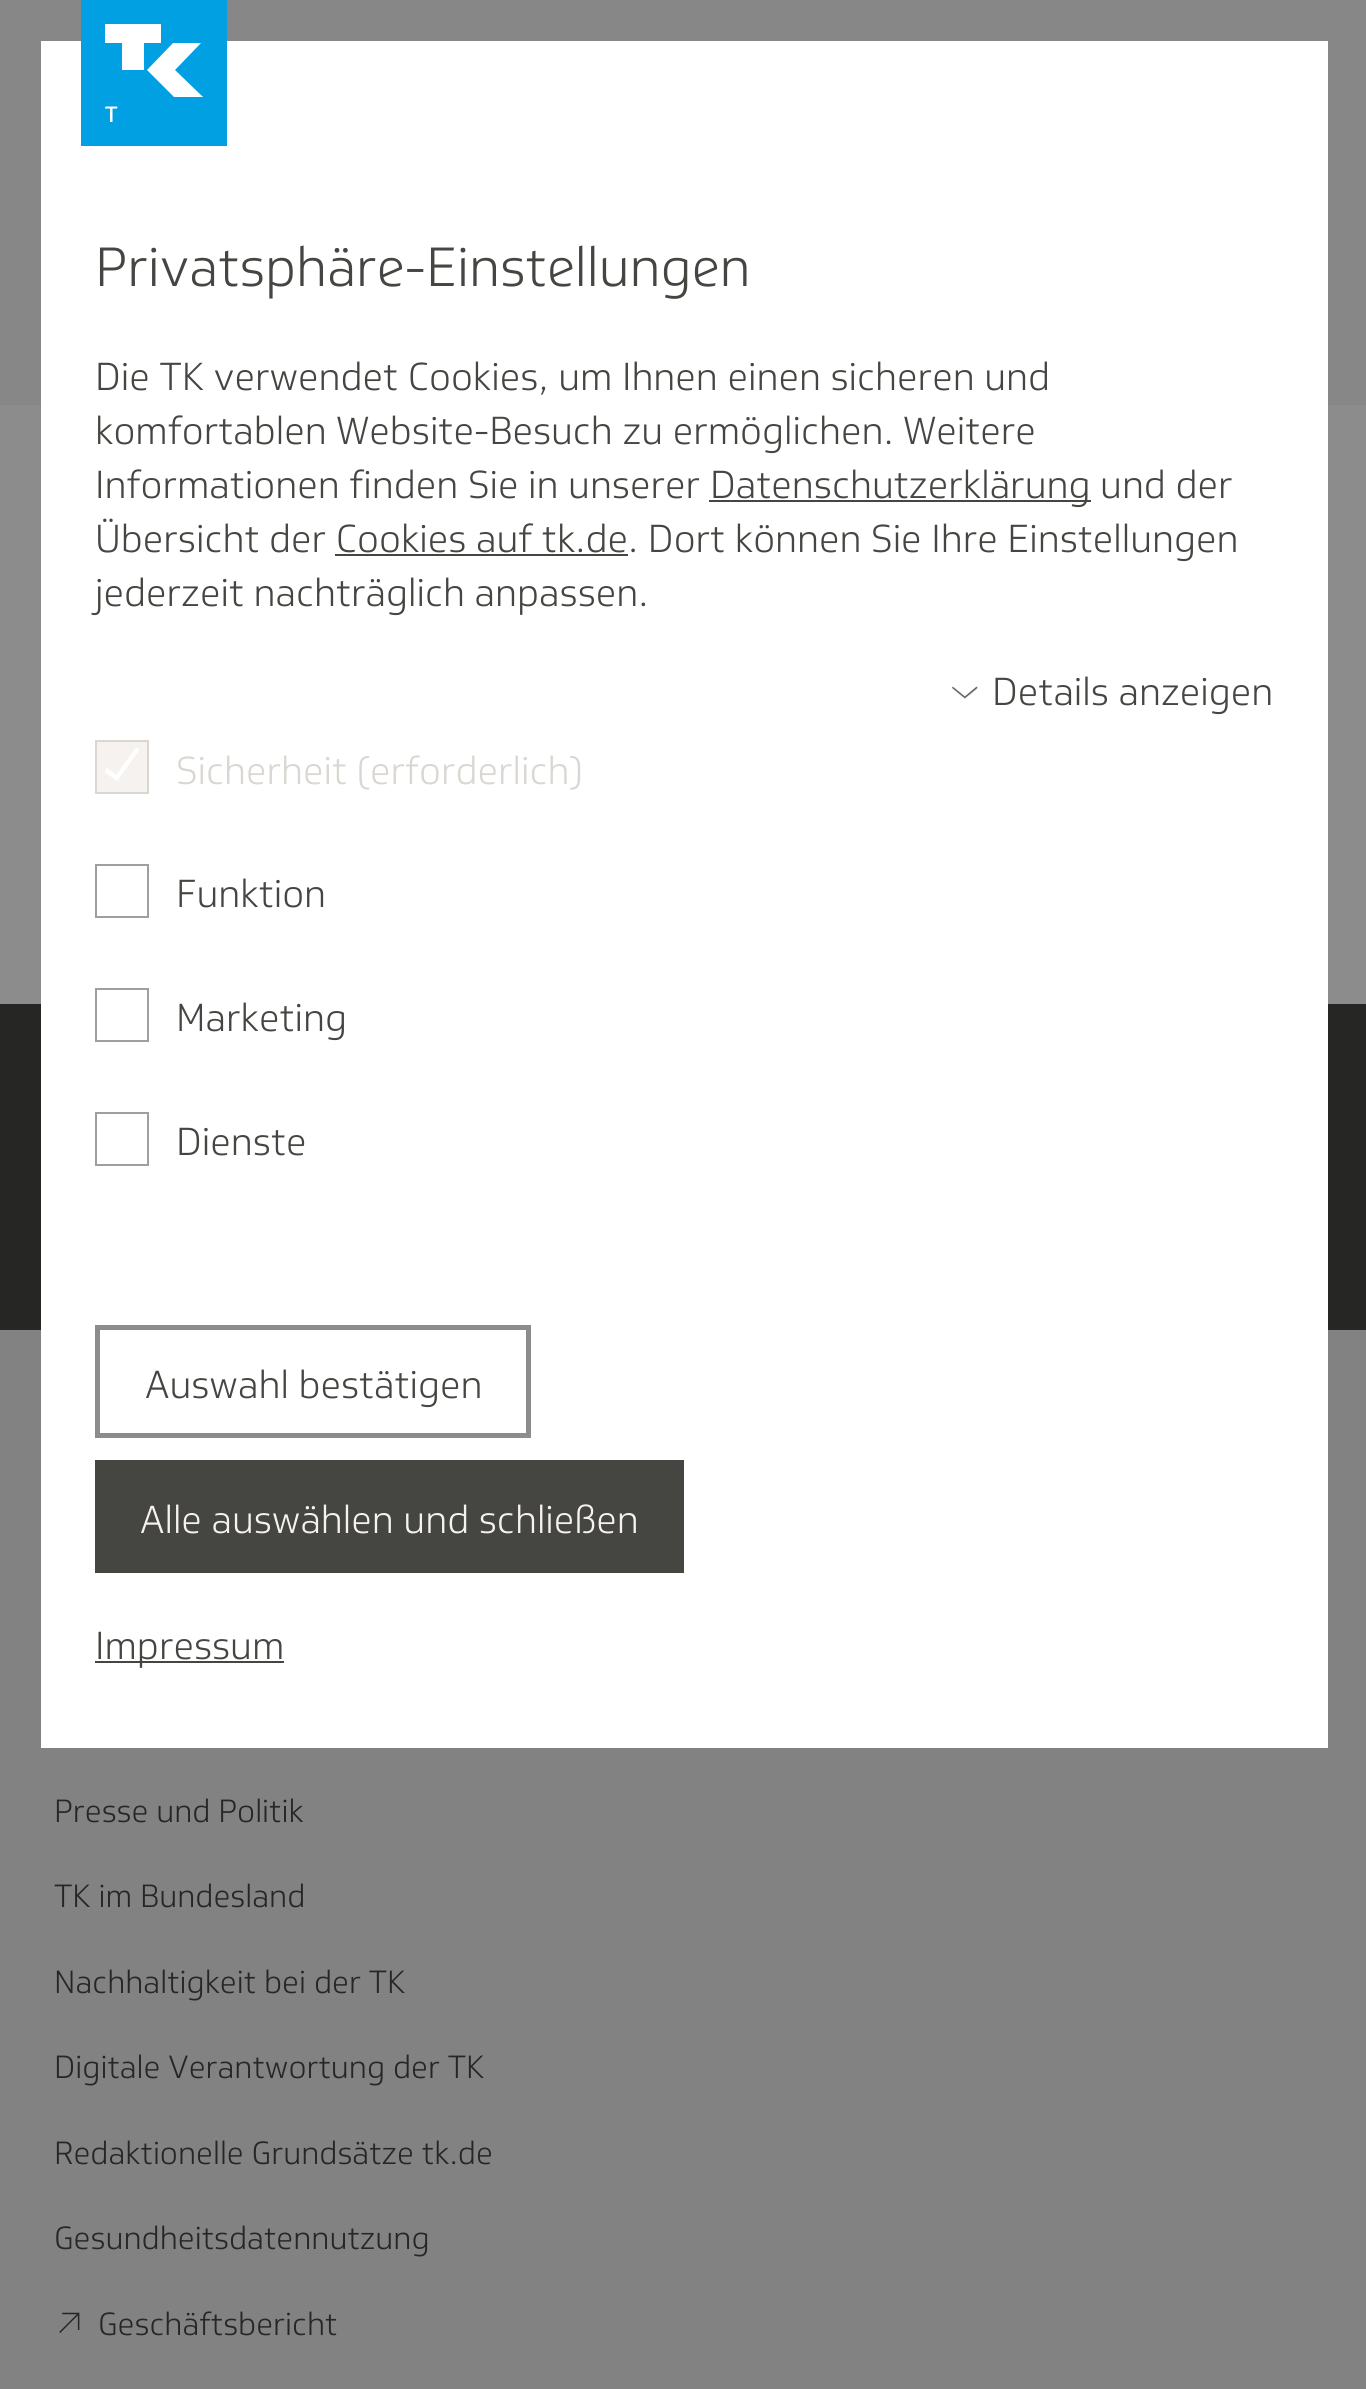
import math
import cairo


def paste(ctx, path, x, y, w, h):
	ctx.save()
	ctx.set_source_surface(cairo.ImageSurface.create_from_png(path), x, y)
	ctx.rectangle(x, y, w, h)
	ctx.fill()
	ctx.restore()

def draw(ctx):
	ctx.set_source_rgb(0.549, 0.549, 0.549)
	ctx.paint()
	ctx.set_source_rgb(0.529, 0.529, 0.529)
	ctx.rectangle(0, 0, 1366, 405)
	ctx.fill()
	ctx.set_source_rgb(0.51, 0.51, 0.51)
	ctx.rectangle(0, 1330, 1366, 1059)
	ctx.fill()
	ctx.set_source_rgb(0.149, 0.149, 0.141)
	ctx.rectangle(0, 1004, 1366, 326)
	ctx.fill()
	ctx.set_source_rgb(1, 1, 1)
	ctx.rectangle(41, 41, 1287, 1707)
	ctx.fill()
	ctx.set_source_rgb(0, 0.627, 0.89)
	ctx.rectangle(81, 0, 146, 146)
	ctx.fill()
	ctx.set_source_rgb(1, 1, 1)
	ctx.new_path()
	ctx.move_to(144, 43)
	ctx.line_to(144, 70)
	ctx.line_to(122, 70)
	ctx.line_to(122, 43)
	ctx.line_to(105, 43)
	ctx.line_to(105, 24)
	ctx.line_to(161, 24)
	ctx.line_to(161, 43)
	ctx.close_path()
	ctx.fill()
	ctx.new_path()
	ctx.move_to(173, 43)
	ctx.line_to(201, 43)
	ctx.line_to(175, 70)
	ctx.line_to(203, 97)
	ctx.line_to(174, 97)
	ctx.line_to(147, 70)
	ctx.close_path()
	ctx.fill()
	ctx.new_path()
	ctx.move_to(117.5, 106.5)
	ctx.line_to(117, 108.5)
	ctx.line_to(112.5, 108.5)
	ctx.line_to(112.5, 122)
	ctx.line_to(110, 122)
	ctx.line_to(110, 108.5)
	ctx.line_to(105, 108.5)
	ctx.line_to(105.5, 106.5)
	ctx.close_path()
	ctx.fill()
	ctx.select_font_face('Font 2 Light')
	ctx.set_font_size(54)
	ctx.set_source_rgb(0.271, 0.271, 0.259)
	ctx.move_to(95, 286)
	ctx.show_text('Privatsphäre-Einstellungen')
	ctx.select_font_face('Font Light')
	ctx.set_font_size(38.25)
	for x, y, s in [
		(95, 390, 'Die TK verwendet Cookies, um Ihnen einen sicheren und'),
		(95, 444, 'komfortablen Website-Besuch zu ermöglichen. Weitere'),
		(95, 498, 'Informationen finden Sie in unserer'),
	]:
		ctx.move_to(x, y)
		ctx.show_text(s)
	ctx.rectangle(709, 500, 382, 2)
	ctx.fill()
	ctx.move_to(710, 498)
	ctx.show_text('Datenschutzerklärung und der')
	ctx.move_to(95, 552)
	ctx.show_text('Übersicht der Cookies auf tk.de. Dort können Sie Ihre Einstellungen')
	ctx.rectangle(335, 554, 293, 2)
	ctx.fill()
	ctx.move_to(95, 606)
	ctx.show_text('jederzeit nachträglich anpassen.')
	paste(ctx, 'media/1.png', 952, 686, 26, 13)
	ctx.move_to(992, 705)
	ctx.show_text('Details anzeigen')
	ctx.set_source_rgb(0.961, 0.949, 0.937)
	ctx.rectangle(96, 741, 52, 52)
	ctx.fill_preserve()
	ctx.set_source_rgb(0.855, 0.839, 0.82)
	ctx.stroke()
	ctx.set_source_rgb(1, 1, 1)
	ctx.new_path()
	ctx.move_to(136, 747.5)
	ctx.line_to(139.5, 750)
	ctx.line_to(117, 781)
	ctx.line_to(113.5, 778.5)
	ctx.close_path()
	ctx.fill()
	ctx.new_path()
	ctx.move_to(107, 768)
	ctx.line_to(120, 777.5)
	ctx.line_to(117, 781)
	ctx.line_to(104.5, 772)
	ctx.close_path()
	ctx.fill()
	ctx.set_source_rgb(0.855, 0.839, 0.82)
	ctx.move_to(176, 784)
	ctx.show_text('Sicherheit (erforderlich)')
	ctx.rectangle(96, 865, 52, 52)
	ctx.set_source_rgb(0.627, 0.624, 0.62)
	ctx.stroke()
	ctx.set_source_rgb(0.271, 0.271, 0.259)
	ctx.move_to(176, 907)
	ctx.show_text('Funktion')
	ctx.rectangle(96, 989, 52, 52)
	ctx.set_source_rgb(0.627, 0.624, 0.62)
	ctx.stroke()
	ctx.set_source_rgb(0.271, 0.271, 0.259)
	ctx.move_to(176, 1031)
	ctx.show_text('Marketing')
	ctx.rectangle(96, 1113, 52, 52)
	ctx.set_source_rgb(0.627, 0.624, 0.62)
	ctx.stroke()
	ctx.set_source_rgb(0.271, 0.271, 0.259)
	ctx.move_to(176, 1155)
	ctx.show_text('Dienste')
	ctx.rectangle(97.5, 1327.5, 431, 108)
	ctx.set_source_rgb(0.549, 0.549, 0.549)
	ctx.set_line_width(5)
	ctx.stroke()
	ctx.set_source_rgb(0.271, 0.271, 0.259)
	ctx.move_to(145, 1398)
	ctx.show_text('Auswahl bestätigen')
	ctx.rectangle(95, 1460, 589, 113)
	ctx.fill()
	ctx.set_source_rgb(0.961, 0.949, 0.937)
	ctx.move_to(140, 1533)
	ctx.show_text('Alle auswählen und schließen')
	ctx.set_source_rgb(0.271, 0.271, 0.259)
	ctx.rectangle(95, 1661, 189, 2)
	ctx.fill()
	ctx.move_to(95, 1659)
	ctx.show_text('Impressum')
	ctx.set_font_size(31.5)
	ctx.set_source_rgb(0.149, 0.149, 0.141)
	for x, y, s in [
		(54, 1822, 'Presse und Politik'),
		(54, 1907, 'TK im Bundesland'),
		(54, 1993, 'Nachhaltigkeit bei der TK'),
		(54, 2078, 'Digitale Verantwortung der TK'),
		(54, 2164, 'Redaktionelle Grundsätze tk.de'),
		(54, 2249, 'Gesundheitsdatennutzung'),
	]:
		ctx.move_to(x, y)
		ctx.show_text(s)
	paste(ctx, 'media/2.png', 59, 2312, 21, 21)
	ctx.move_to(98, 2335)
	ctx.show_text('Geschäftsbericht')


surface = cairo.ImageSurface(cairo.FORMAT_RGB24, 1366, 2389)
ctx = cairo.Context(surface)
options = cairo.FontOptions()
options.set_hint_metrics(cairo.HINT_METRICS_OFF)
options.set_hint_style(cairo.HINT_STYLE_NONE)
ctx.set_font_options(options)
ctx.set_miter_limit(4)
draw(ctx)
surface.write_to_png('image.png')
